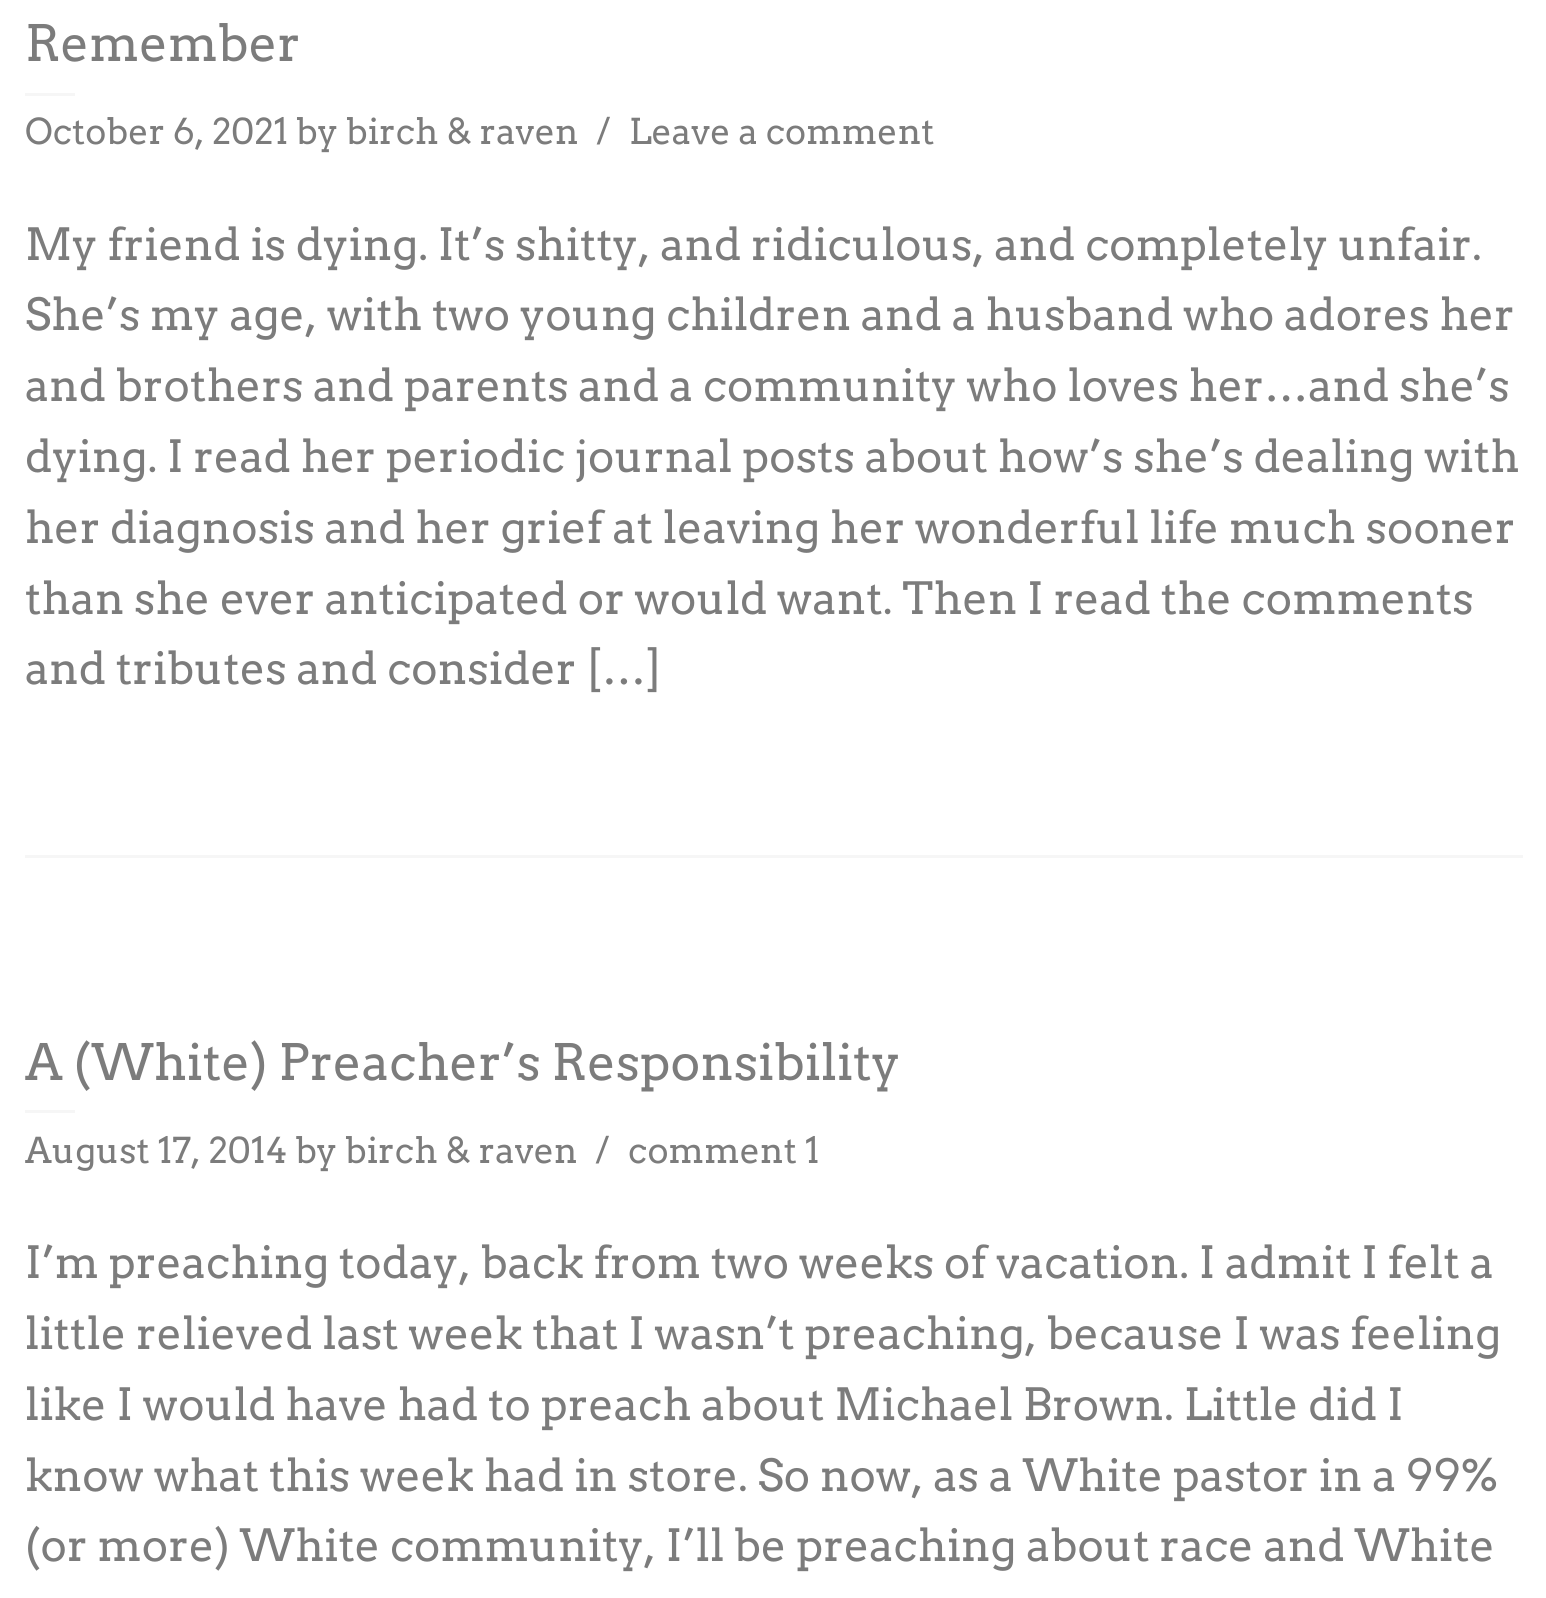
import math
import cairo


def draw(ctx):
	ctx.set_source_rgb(1, 1, 1)
	ctx.paint()
	ctx.set_source_rgb(0.961, 0.961, 0.961)
	ctx.rectangle(25, 855, 1498, 3)
	ctx.fill()
	ctx.select_font_face('Arvo')
	ctx.set_font_size(50)
	ctx.set_source_rgb(0.486, 0.486, 0.486)
	ctx.move_to(25, 61)
	ctx.show_text('Remember')
	ctx.set_source_rgb(0.961, 0.961, 0.961)
	ctx.rectangle(25, 93, 50, 3)
	ctx.fill()
	ctx.set_font_size(35.5)
	ctx.set_source_rgb(0.486, 0.486, 0.486)
	for x, y, s in [
		(25, 144, 'October 6, 2021 by birch & raven'),
		(596, 144, '/'),
		(629, 144, 'Leave a comment'),
	]:
		ctx.move_to(x, y)
		ctx.show_text(s)
	ctx.set_font_size(44.25)
	for x, y, s in [
		(25, 260, 'My friend is dying. It’s shitty, and ridiculous, and completely unfair.'),
		(25, 330, 'She’s my age, with two young children and a husband who adores her'),
		(25, 401, 'and brothers and parents and a community who loves her…and she’s'),
		(25, 472, 'dying. I read her periodic journal posts about how’s she’s dealing with'),
		(25, 543, 'her diagnosis and her grief at leaving her wonderful life much sooner'),
		(25, 614, 'than she ever anticipated or would want. Then I read the comments'),
		(25, 684, 'and tributes and consider […]'),
	]:
		ctx.move_to(x, y)
		ctx.show_text(s)
	ctx.set_font_size(50)
	ctx.move_to(25, 1080)
	ctx.show_text('A (White) Preacher’s Responsibility')
	ctx.set_source_rgb(0.961, 0.961, 0.961)
	ctx.rectangle(25, 1110, 50, 3)
	ctx.fill()
	ctx.set_font_size(35.5)
	ctx.set_source_rgb(0.486, 0.486, 0.486)
	for x, y, s in [
		(25, 1163, 'August 17, 2014 by birch & raven'),
		(595, 1163, '/'),
		(628, 1163, 'comment 1'),
	]:
		ctx.move_to(x, y)
		ctx.show_text(s)
	ctx.set_font_size(44.25)
	for x, y, s in [
		(25, 1278, 'I’m preaching today, back from two weeks of vacation. I admit I felt a'),
		(25, 1349, 'little relieved last week that I wasn’t preaching, because I was feeling'),
		(25, 1420, 'like I would have had to preach about Michael Brown. Little did I'),
		(25, 1491, 'know what this week had in store. So now, as a White pastor in a 99%'),
		(25, 1561, '(or more) White community, I’ll be preaching about race and White'),
	]:
		ctx.move_to(x, y)
		ctx.show_text(s)


surface = cairo.ImageSurface(cairo.FORMAT_RGB24, 1546, 1598)
ctx = cairo.Context(surface)
options = cairo.FontOptions()
options.set_hint_metrics(cairo.HINT_METRICS_OFF)
options.set_hint_style(cairo.HINT_STYLE_NONE)
ctx.set_font_options(options)
ctx.set_miter_limit(4)
draw(ctx)
surface.write_to_png('image.png')
